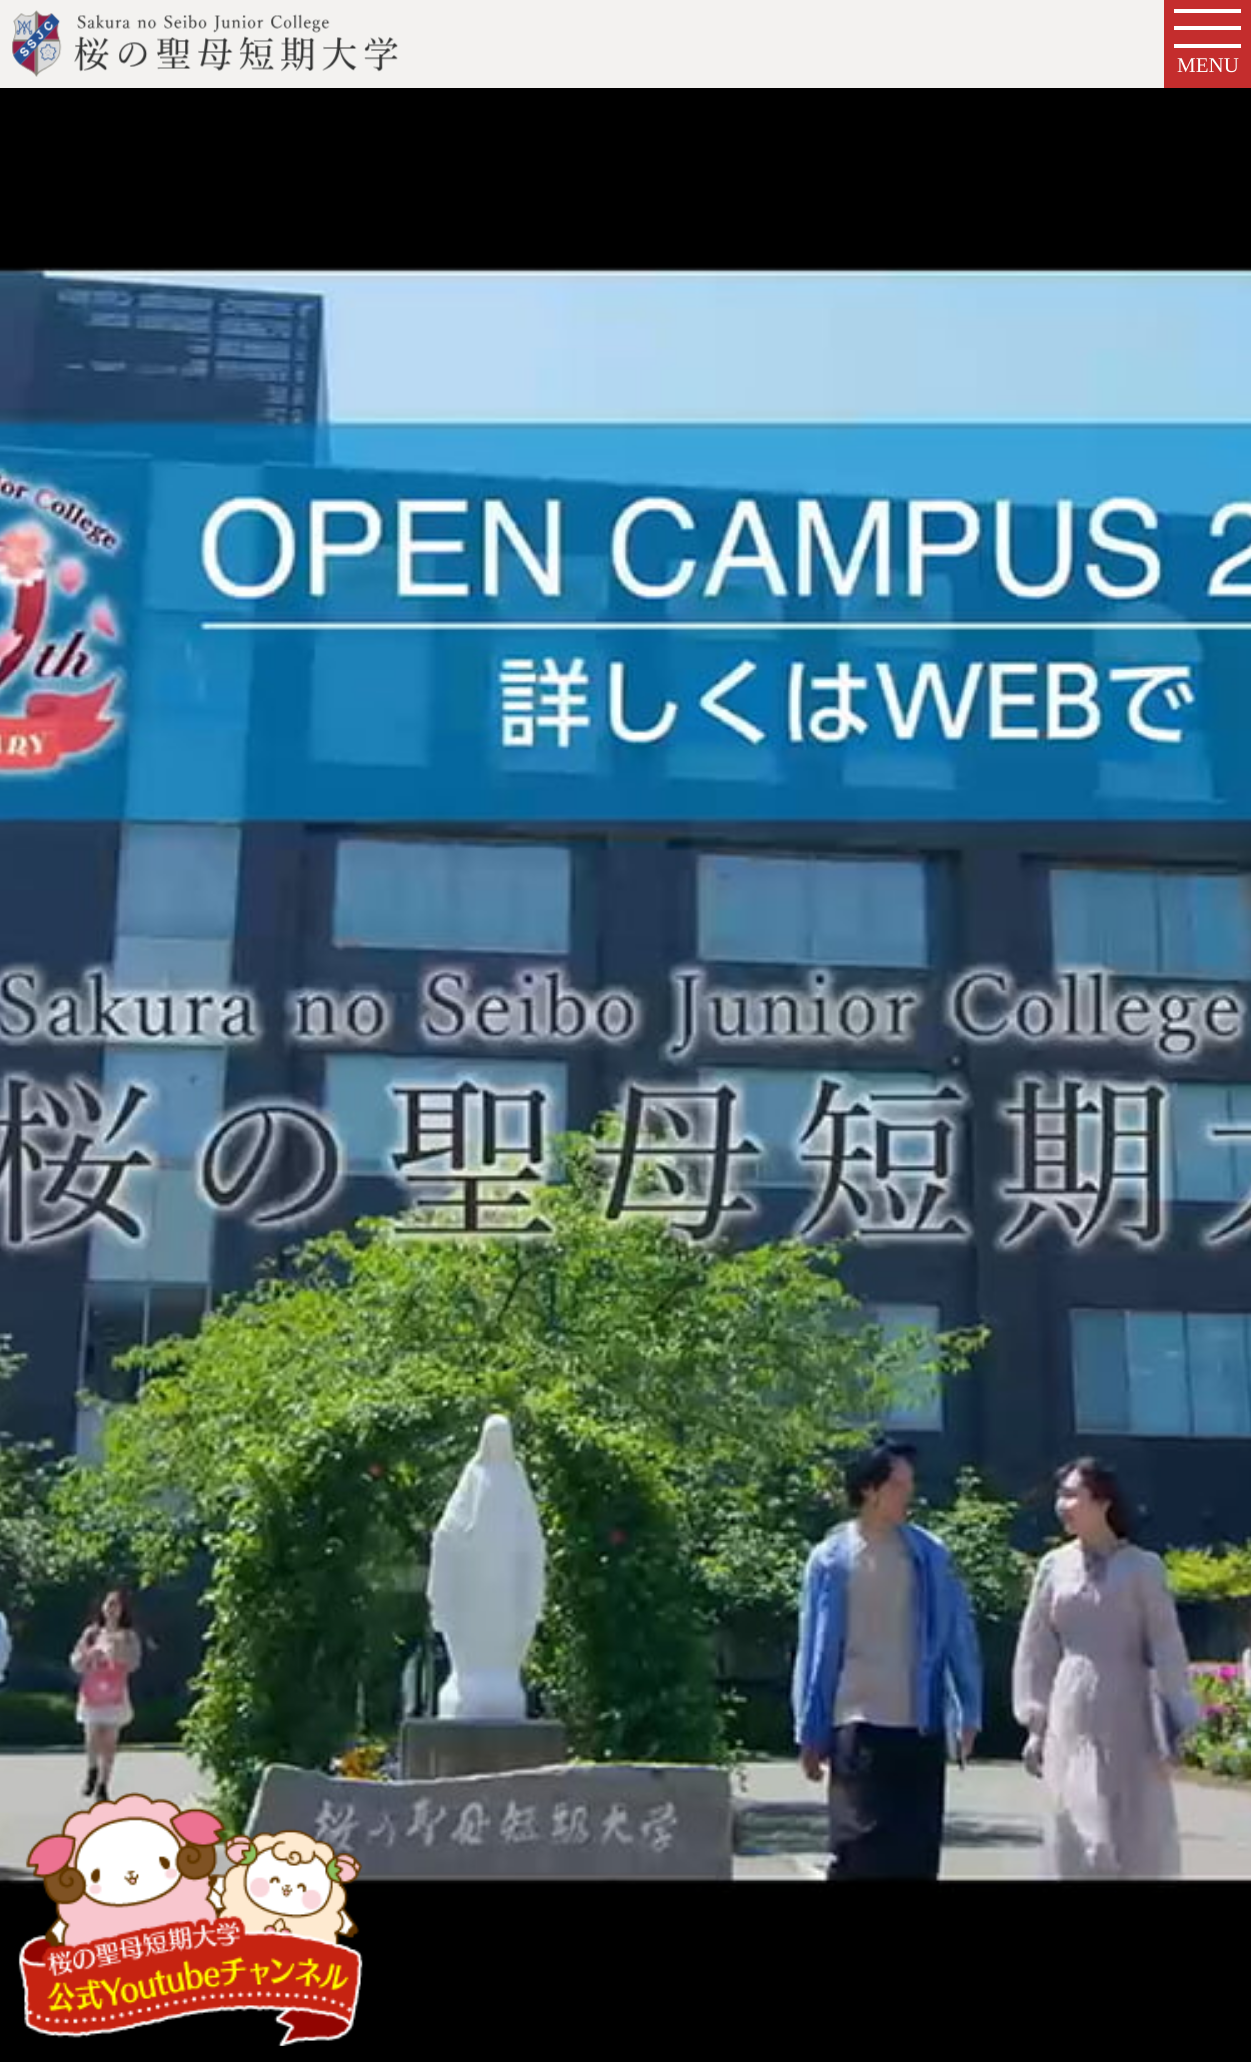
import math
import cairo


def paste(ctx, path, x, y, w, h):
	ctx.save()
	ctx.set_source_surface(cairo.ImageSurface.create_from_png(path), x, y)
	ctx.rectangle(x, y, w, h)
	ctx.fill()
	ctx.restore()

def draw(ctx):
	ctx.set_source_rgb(1, 1, 1)
	ctx.paint()
	ctx.set_source_rgb(0.953, 0.949, 0.941)
	ctx.rectangle(0, 0, 1164, 88)
	ctx.fill()
	paste(ctx, 'media/1.png', 12, 10, 386, 67)
	ctx.set_source_rgb(0.769, 0.176, 0.176)
	ctx.rectangle(1164, 0, 87, 88)
	ctx.fill()
	ctx.set_source_rgb(1, 1, 1)
	ctx.rectangle(1174, 9, 67, 4)
	ctx.rectangle(1174, 26, 67, 4)
	ctx.rectangle(1174, 44, 67, 4)
	ctx.fill()
	ctx.select_font_face('Liberation Serif')
	ctx.set_font_size(21)
	ctx.move_to(1177, 72)
	ctx.show_text('MENU')
	paste(ctx, 'media/2.png', 0, 88, 1251, 1974)
	paste(ctx, 'media/3.png', 18, 1792, 345, 254)


surface = cairo.ImageSurface(cairo.FORMAT_RGB24, 1251, 2062)
ctx = cairo.Context(surface)
options = cairo.FontOptions()
options.set_hint_metrics(cairo.HINT_METRICS_OFF)
options.set_hint_style(cairo.HINT_STYLE_NONE)
ctx.set_font_options(options)
ctx.set_miter_limit(4)
draw(ctx)
surface.write_to_png('image.png')
